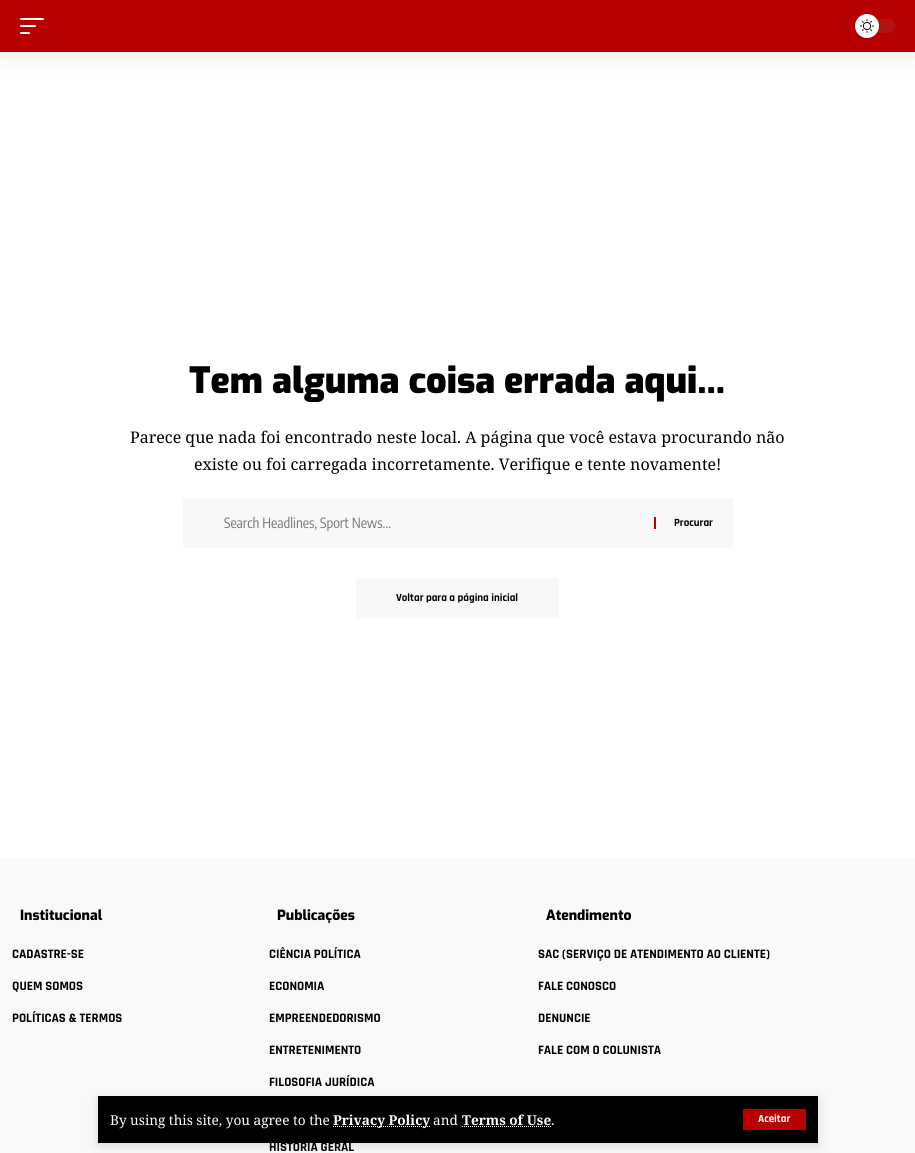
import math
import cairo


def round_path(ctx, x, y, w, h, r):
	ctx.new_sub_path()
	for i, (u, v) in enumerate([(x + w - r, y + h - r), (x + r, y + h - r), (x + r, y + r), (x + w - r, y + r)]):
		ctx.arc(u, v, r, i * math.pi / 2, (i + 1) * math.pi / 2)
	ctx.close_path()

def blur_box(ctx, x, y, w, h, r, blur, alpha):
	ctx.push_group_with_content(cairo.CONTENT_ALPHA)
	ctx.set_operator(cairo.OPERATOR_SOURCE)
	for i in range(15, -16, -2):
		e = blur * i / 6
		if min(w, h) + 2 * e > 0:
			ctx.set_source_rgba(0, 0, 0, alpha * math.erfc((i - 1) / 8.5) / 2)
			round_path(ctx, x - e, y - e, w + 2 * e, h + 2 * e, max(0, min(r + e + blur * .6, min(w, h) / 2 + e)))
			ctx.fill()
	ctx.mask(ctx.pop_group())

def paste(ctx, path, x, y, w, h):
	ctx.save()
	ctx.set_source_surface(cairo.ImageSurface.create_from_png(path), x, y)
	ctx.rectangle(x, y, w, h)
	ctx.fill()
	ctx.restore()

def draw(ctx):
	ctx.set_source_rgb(1, 1, 1)
	ctx.paint()
	ctx.select_font_face('Exo Black')
	ctx.set_font_size(36)
	ctx.set_source_rgb(0, 0, 0)
	ctx.move_to(189, 393)
	ctx.show_text('Tem alguma coisa errada aqui...')
	ctx.select_font_face('Noto Serif')
	ctx.set_font_size(16)
	ctx.move_to(130, 443)
	ctx.show_text('Parece que nada foi encontrado neste local. A página que você estava procurando não')
	ctx.move_to(194, 470)
	ctx.show_text('existe ou foi carregada incorretamente. Verifique e tente novamente!')
	ctx.set_source_rgb(0.969, 0.969, 0.969)
	ctx.rectangle(183, 498, 550, 50)
	ctx.fill()
	ctx.select_font_face('Encode Sans Condensed')
	ctx.set_font_size(14)
	ctx.set_source_rgb(0.459, 0.459, 0.459)
	ctx.move_to(224, 528)
	ctx.show_text('Search Headlines, Sport News...')
	ctx.set_source_rgb(0.722, 0, 0)
	ctx.rectangle(654, 517, 2, 12)
	ctx.fill()
	ctx.select_font_face('Rajdhani', cairo.FONT_SLANT_NORMAL, cairo.FONT_WEIGHT_BOLD)
	ctx.set_font_size(11)
	ctx.set_source_rgb(0, 0, 0)
	ctx.move_to(674, 526)
	ctx.show_text('Procurar')
	ctx.set_source_rgb(0.969, 0.969, 0.969)
	ctx.rectangle(356, 578, 203, 40)
	ctx.fill()
	ctx.set_source_rgb(0, 0, 0)
	ctx.move_to(396, 601)
	ctx.show_text('Voltar para a página inicial')
	ctx.set_source_rgb(0.973, 0.973, 0.973)
	ctx.rectangle(0, 859, 915, 294)
	ctx.fill()
	ctx.select_font_face('Exo ExtraBold')
	ctx.set_font_size(14)
	ctx.set_source_rgb(0, 0, 0)
	ctx.move_to(20, 920)
	ctx.show_text('Institucional')
	ctx.select_font_face('Rajdhani', cairo.FONT_SLANT_NORMAL, cairo.FONT_WEIGHT_BOLD)
	ctx.set_font_size(13)
	for x, y, s in [
		(12, 958, 'CADASTRE-SE'),
		(12, 990, 'QUEM SOMOS'),
		(12, 1022, 'POLÍTICAS & TERMOS'),
	]:
		ctx.move_to(x, y)
		ctx.show_text(s)
	ctx.select_font_face('Exo ExtraBold')
	ctx.set_font_size(14)
	ctx.move_to(277, 920)
	ctx.show_text('Publicações')
	ctx.select_font_face('Rajdhani', cairo.FONT_SLANT_NORMAL, cairo.FONT_WEIGHT_BOLD)
	ctx.set_font_size(13)
	for x, y, s in [
		(269, 958, 'CIÊNCIA POLÍTICA'),
		(269, 990, 'ECONOMIA'),
		(269, 1022, 'EMPREENDEDORISMO'),
		(269, 1054, 'ENTRETENIMENTO'),
		(269, 1086, 'FILOSOFIA JURÍDICA'),
		(269, 1151, 'HISTÓRIA GERAL'),
	]:
		ctx.move_to(x, y)
		ctx.show_text(s)
	ctx.select_font_face('Exo ExtraBold')
	ctx.set_font_size(14)
	ctx.move_to(546, 920)
	ctx.show_text('Atendimento')
	ctx.select_font_face('Rajdhani', cairo.FONT_SLANT_NORMAL, cairo.FONT_WEIGHT_BOLD)
	ctx.set_font_size(13)
	for x, y, s in [
		(538, 958, 'SAC (SERVIÇO DE ATENDIMENTO AO CLIENTE)'),
		(538, 990, 'FALE CONOSCO'),
		(538, 1022, 'DENUNCIE'),
		(538, 1054, 'FALE COM O COLUNISTA'),
	]:
		ctx.move_to(x, y)
		ctx.show_text(s)
	ctx.set_source_rgb(0, 0, 0)
	blur_box(ctx, 0, 4, 915, 52, 0, 15, 0.07)
	ctx.set_source_rgb(0.722, 0, 0)
	ctx.rectangle(0, 0, 915, 52)
	ctx.fill()
	ctx.set_source_rgb(1, 1, 1)
	round_path(ctx, 20, 18, 24, 2, 1)
	ctx.fill()
	round_path(ctx, 20, 25, 16, 2, 1)
	ctx.fill()
	round_path(ctx, 20, 32, 10, 2, 1)
	ctx.fill()
	ctx.set_source_rgb(0.651, 0.02, 0.02)
	ctx.rectangle(844, 19, 1, 14)
	ctx.fill()
	ctx.set_source_rgb(0.694, 0.078, 0.078)
	round_path(ctx, 855, 19, 40, 14, 7)
	ctx.fill()
	ctx.set_source_rgb(0, 0, 0)
	blur_box(ctx, 855, 15, 24, 24, 12, 2, 0.12)
	ctx.set_source_rgb(1, 1, 1)
	ctx.arc(867, 26, 12, 0, 2 * math.pi)
	ctx.fill()
	paste(ctx, 'media/1.png', 860, 19, 14, 14)
	ctx.set_source_rgb(0, 0, 0)
	blur_box(ctx, 98, 1099, 720, 47, 0, 6, 0.12)
	ctx.set_source_rgb(0, 0, 0)
	ctx.rectangle(98, 1096, 720, 47)
	ctx.fill()
	ctx.select_font_face('Noto Serif')
	ctx.set_font_size(13.6)
	ctx.set_source_rgb(1, 1, 1)
	ctx.move_to(110, 1125)
	ctx.show_text('By using this site, you agree to the')
	ctx.new_path()
	ctx.move_to(333, 1126.5)
	ctx.line_to(430, 1126.5)
	ctx.set_line_width(1)
	ctx.set_dash([1, 1])
	ctx.stroke()
	ctx.select_font_face('Noto Serif', cairo.FONT_SLANT_NORMAL, cairo.FONT_WEIGHT_BOLD)
	ctx.move_to(333, 1125)
	ctx.show_text('Privacy Policy')
	ctx.select_font_face('Noto Serif')
	ctx.move_to(433, 1125)
	ctx.show_text('and')
	ctx.select_font_face('Noto Serif', cairo.FONT_SLANT_NORMAL, cairo.FONT_WEIGHT_BOLD)
	ctx.move_to(462, 1125)
	ctx.show_text('Terms of Use')
	ctx.new_path()
	ctx.move_to(462, 1126.5)
	ctx.line_to(551, 1126.5)
	ctx.stroke()
	ctx.select_font_face('Noto Serif')
	ctx.move_to(551, 1125)
	ctx.show_text('.')
	ctx.set_source_rgb(0.722, 0, 0)
	ctx.rectangle(743, 1109, 63, 21)
	ctx.fill()
	ctx.select_font_face('Rajdhani', cairo.FONT_SLANT_NORMAL, cairo.FONT_WEIGHT_BOLD)
	ctx.set_font_size(11)
	ctx.set_source_rgb(1, 1, 1)
	ctx.move_to(758, 1122)
	ctx.show_text('Aceitar')


surface = cairo.ImageSurface(cairo.FORMAT_RGB24, 915, 1153)
ctx = cairo.Context(surface)
options = cairo.FontOptions()
options.set_hint_metrics(cairo.HINT_METRICS_OFF)
options.set_hint_style(cairo.HINT_STYLE_NONE)
ctx.set_font_options(options)
ctx.set_miter_limit(4)
draw(ctx)
surface.write_to_png('image.png')
